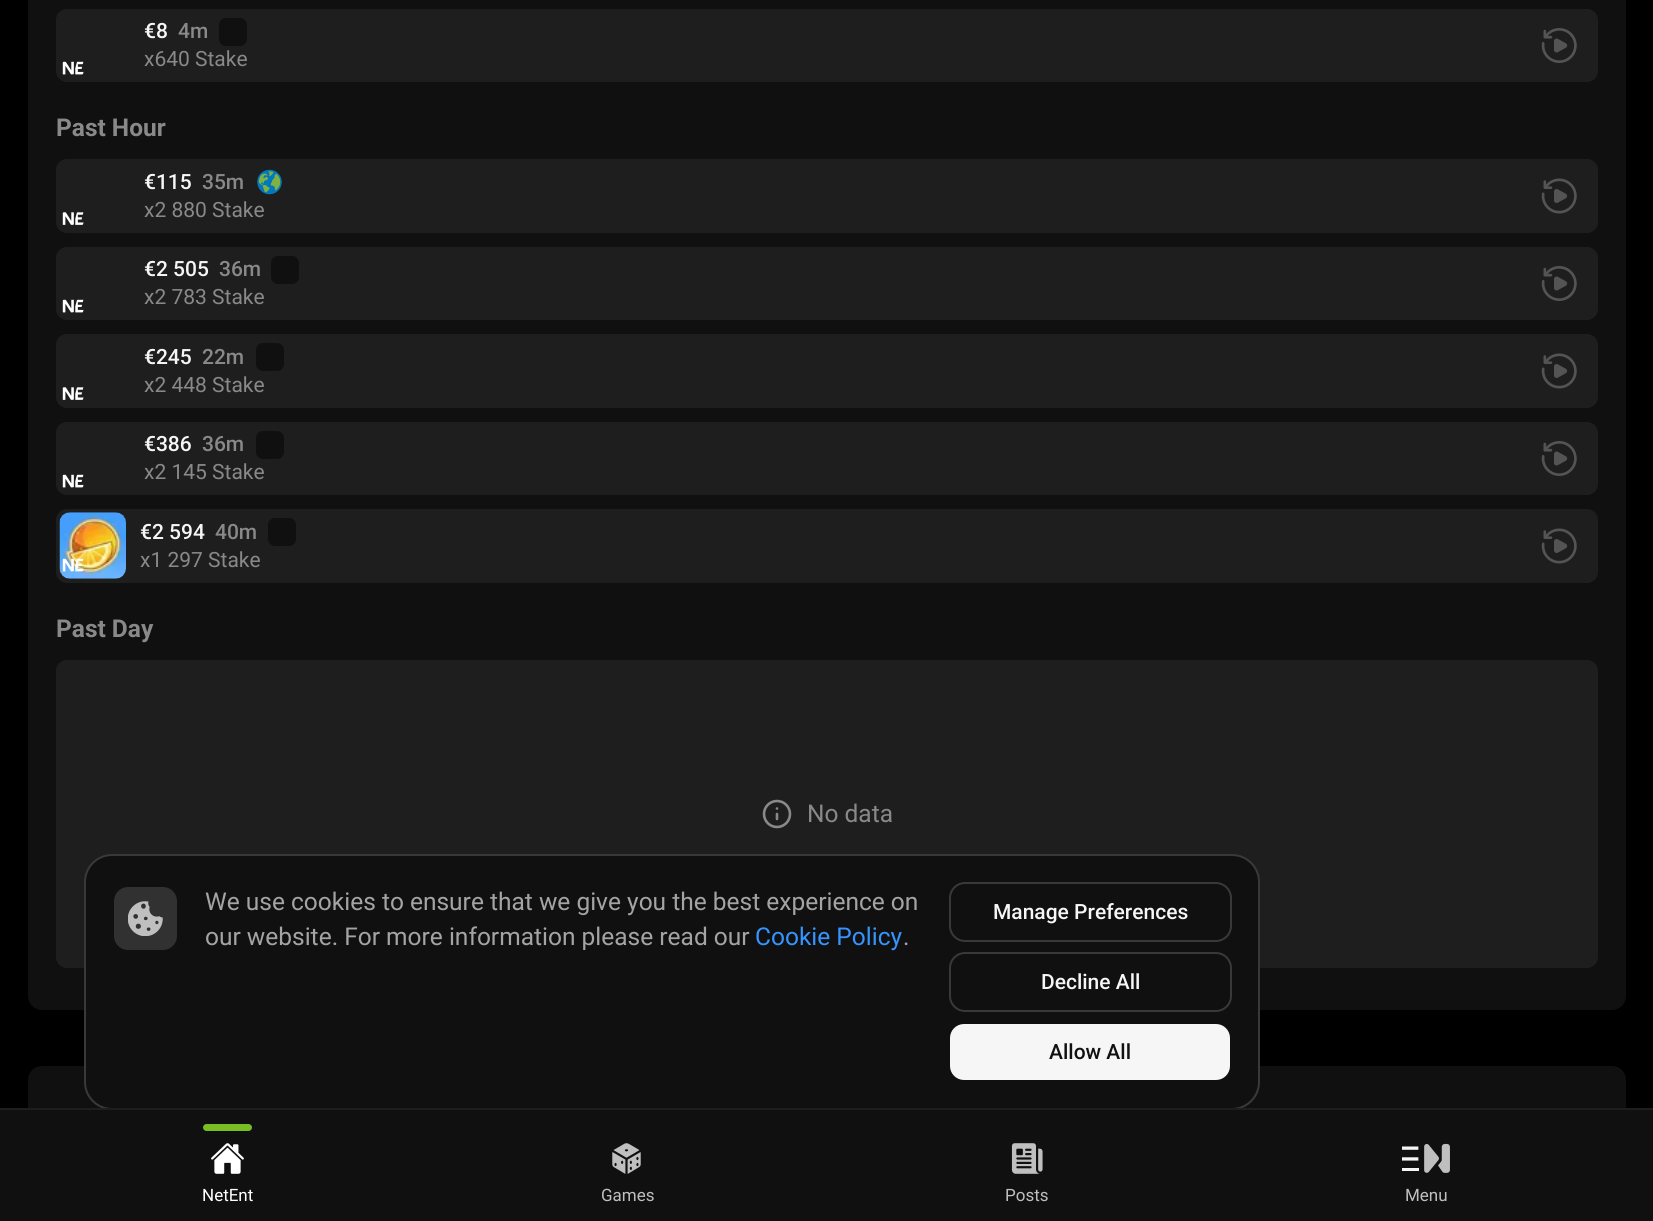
import math
import cairo


def round_path(ctx, x, y, w, h, r):
	ctx.new_sub_path()
	for i, (u, v) in enumerate([(x + w - r, y + h - r), (x + r, y + h - r), (x + r, y + r), (x + w - r, y + r)]):
		ctx.arc(u, v, r, i * math.pi / 2, (i + 1) * math.pi / 2)
	ctx.close_path()

def paste(ctx, path, x, y, w, h):
	ctx.save()
	ctx.set_source_surface(cairo.ImageSurface.create_from_png(path), x, y)
	ctx.rectangle(x, y, w, h)
	ctx.fill()
	ctx.restore()

def draw(ctx):
	ctx.set_source_rgb(0, 0, 0)
	ctx.paint()
	ctx.set_source_rgb(0.063, 0.063, 0.063)
	round_path(ctx, 28, -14, 1598, 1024, 14)
	ctx.fill()
	ctx.set_source_rgb(0.118, 0.118, 0.118)
	round_path(ctx, 56, 9, 1542, 73, 11)
	ctx.fill()
	ctx.select_font_face('Roboto Medium')
	ctx.set_font_size(21)
	ctx.set_source_rgb(0.961, 0.961, 0.961)
	ctx.move_to(144, 38)
	ctx.show_text('€8')
	ctx.set_source_rgb(0.537, 0.537, 0.537)
	ctx.move_to(178, 38)
	ctx.show_text('4m')
	ctx.set_source_rgb(0.063, 0.063, 0.063)
	round_path(ctx, 219, 18, 28, 28, 7)
	ctx.fill()
	ctx.select_font_face('Roboto')
	ctx.set_source_rgb(0.537, 0.537, 0.537)
	ctx.move_to(144, 66)
	ctx.show_text('x640 Stake')
	paste(ctx, 'media/1.png', 1541, 28, 36, 35)
	paste(ctx, 'media/2.png', 62, 61, 22, 14)
	ctx.select_font_face('Roboto', cairo.FONT_SLANT_NORMAL, cairo.FONT_WEIGHT_BOLD)
	ctx.set_font_size(24.5)
	ctx.move_to(56, 136)
	ctx.show_text('Past Hour')
	ctx.set_source_rgb(0.118, 0.118, 0.118)
	round_path(ctx, 56, 159, 1542, 74, 11)
	ctx.fill()
	ctx.select_font_face('Roboto Medium')
	ctx.set_font_size(21)
	ctx.set_source_rgb(0.961, 0.961, 0.961)
	ctx.move_to(144, 189)
	ctx.show_text('€115')
	ctx.set_source_rgb(0.537, 0.537, 0.537)
	ctx.move_to(202, 189)
	ctx.show_text('35m')
	paste(ctx, 'media/3.png', 257, 169, 25, 26)
	ctx.select_font_face('Roboto')
	ctx.move_to(144, 217)
	ctx.show_text('x2 880 Stake')
	paste(ctx, 'media/4.png', 1541, 178, 36, 36)
	paste(ctx, 'media/5.png', 62, 212, 22, 13)
	ctx.set_source_rgb(0.118, 0.118, 0.118)
	round_path(ctx, 56, 247, 1542, 73, 11)
	ctx.fill()
	ctx.select_font_face('Roboto Medium')
	ctx.set_source_rgb(0.961, 0.961, 0.961)
	ctx.move_to(144, 276)
	ctx.show_text('€2 505')
	ctx.set_source_rgb(0.537, 0.537, 0.537)
	ctx.move_to(219, 276)
	ctx.show_text('36m')
	ctx.set_source_rgb(0.063, 0.063, 0.063)
	round_path(ctx, 271, 256, 28, 28, 7)
	ctx.fill()
	ctx.select_font_face('Roboto')
	ctx.set_source_rgb(0.537, 0.537, 0.537)
	ctx.move_to(144, 304)
	ctx.show_text('x2 783 Stake')
	paste(ctx, 'media/1.png', 1541, 266, 36, 35)
	paste(ctx, 'media/2.png', 62, 299, 22, 14)
	ctx.set_source_rgb(0.118, 0.118, 0.118)
	round_path(ctx, 56, 334, 1542, 74, 11)
	ctx.fill()
	ctx.select_font_face('Roboto Medium')
	ctx.set_source_rgb(0.961, 0.961, 0.961)
	ctx.move_to(144, 364)
	ctx.show_text('€245')
	ctx.set_source_rgb(0.537, 0.537, 0.537)
	ctx.move_to(202, 364)
	ctx.show_text('22m')
	ctx.set_source_rgb(0.063, 0.063, 0.063)
	round_path(ctx, 256, 343, 28, 28, 7)
	ctx.fill()
	ctx.select_font_face('Roboto')
	ctx.set_source_rgb(0.537, 0.537, 0.537)
	ctx.move_to(144, 392)
	ctx.show_text('x2 448 Stake')
	paste(ctx, 'media/4.png', 1541, 353, 36, 36)
	paste(ctx, 'media/5.png', 62, 387, 22, 13)
	ctx.set_source_rgb(0.118, 0.118, 0.118)
	round_path(ctx, 56, 422, 1542, 73, 11)
	ctx.fill()
	ctx.select_font_face('Roboto Medium')
	ctx.set_source_rgb(0.961, 0.961, 0.961)
	ctx.move_to(144, 451)
	ctx.show_text('€386')
	ctx.set_source_rgb(0.537, 0.537, 0.537)
	ctx.move_to(202, 451)
	ctx.show_text('36m')
	ctx.set_source_rgb(0.063, 0.063, 0.063)
	round_path(ctx, 256, 431, 28, 28, 7)
	ctx.fill()
	ctx.select_font_face('Roboto')
	ctx.set_source_rgb(0.537, 0.537, 0.537)
	ctx.move_to(144, 479)
	ctx.show_text('x2 145 Stake')
	paste(ctx, 'media/1.png', 1541, 441, 36, 35)
	paste(ctx, 'media/2.png', 62, 474, 22, 14)
	ctx.set_source_rgb(0.118, 0.118, 0.118)
	round_path(ctx, 56, 509, 1542, 74, 11)
	ctx.fill()
	paste(ctx, 'media/6.png', 59, 512, 67, 67)
	paste(ctx, 'media/7.png', 62, 558, 22, 14)
	ctx.select_font_face('Roboto Medium')
	ctx.set_source_rgb(0.961, 0.961, 0.961)
	ctx.move_to(140, 539)
	ctx.show_text('€2 594')
	ctx.set_source_rgb(0.537, 0.537, 0.537)
	ctx.move_to(215, 539)
	ctx.show_text('40m')
	ctx.set_source_rgb(0.063, 0.063, 0.063)
	round_path(ctx, 268, 518, 28, 28, 7)
	ctx.fill()
	ctx.select_font_face('Roboto')
	ctx.set_source_rgb(0.537, 0.537, 0.537)
	ctx.move_to(140, 567)
	ctx.show_text('x1 297 Stake')
	paste(ctx, 'media/4.png', 1541, 528, 36, 36)
	ctx.select_font_face('Roboto', cairo.FONT_SLANT_NORMAL, cairo.FONT_WEIGHT_BOLD)
	ctx.set_font_size(24.5)
	ctx.move_to(56, 637)
	ctx.show_text('Past Day')
	ctx.set_source_rgb(0.118, 0.118, 0.118)
	round_path(ctx, 56, 660, 1542, 308, 11)
	ctx.fill()
	ctx.arc(777, 814, 13, 0, 2 * math.pi)
	ctx.set_source_rgb(0.537, 0.537, 0.537)
	ctx.set_line_width(2.6)
	ctx.stroke()
	ctx.new_path()
	ctx.move_to(777, 819)
	ctx.line_to(777, 814)
	ctx.move_to(777, 808.5)
	ctx.line_to(777, 808.5)
	ctx.set_line_cap(cairo.LINE_CAP_ROUND)
	ctx.set_line_join(cairo.LINE_JOIN_ROUND)
	ctx.stroke()
	ctx.select_font_face('Roboto')
	ctx.move_to(807, 822)
	ctx.show_text('No data')
	ctx.set_source_rgb(0.063, 0.063, 0.063)
	round_path(ctx, 28, 1066, 1598, 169, 14)
	ctx.fill()
	round_path(ctx, 85, 855, 1174, 254, 27)
	ctx.fill_preserve()
	ctx.set_source_rgb(0.224, 0.224, 0.224)
	ctx.set_line_width(2)
	ctx.set_line_cap(cairo.LINE_CAP_BUTT)
	ctx.set_line_join(cairo.LINE_JOIN_MITER)
	ctx.stroke()
	ctx.set_source_rgb(0.192, 0.192, 0.192)
	round_path(ctx, 114, 887, 63, 63, 14)
	ctx.fill()
	paste(ctx, 'media/8.png', 128, 901, 35, 35)
	ctx.set_source_rgb(0.643, 0.643, 0.643)
	ctx.move_to(205, 910)
	ctx.show_text('We use cookies to ensure that we give you the best experience on')
	ctx.move_to(205, 945)
	ctx.show_text('our website. For more information please read our')
	ctx.set_source_rgb(0.212, 0.58, 1)
	ctx.move_to(755, 945)
	ctx.show_text('Cookie Policy')
	ctx.set_source_rgb(0.643, 0.643, 0.643)
	ctx.move_to(903, 945)
	ctx.show_text('.')
	round_path(ctx, 950, 883, 281, 58, 15)
	ctx.set_source_rgb(0.224, 0.224, 0.224)
	ctx.stroke()
	ctx.select_font_face('Roboto Medium')
	ctx.set_font_size(21)
	ctx.set_source_rgb(0.961, 0.961, 0.961)
	ctx.move_to(993, 919)
	ctx.show_text('Manage Preferences')
	round_path(ctx, 950, 953, 281, 58, 15)
	ctx.set_source_rgb(0.224, 0.224, 0.224)
	ctx.stroke()
	ctx.set_source_rgb(0.961, 0.961, 0.961)
	ctx.move_to(1041, 989)
	ctx.show_text('Decline All')
	round_path(ctx, 950, 1024, 280, 56, 14)
	ctx.fill()
	ctx.set_source_rgb(0.067, 0.067, 0.067)
	ctx.move_to(1049, 1059)
	ctx.show_text('Allow All')
	ctx.set_source_rgb(0.118, 0.118, 0.118)
	ctx.rectangle(0, 1108, 1653, 2)
	ctx.fill()
	ctx.set_source_rgb(0.063, 0.063, 0.063)
	ctx.rectangle(0, 1110, 1653, 111)
	ctx.fill()
	ctx.set_source_rgb(0.471, 0.745, 0.133)
	round_path(ctx, 203, 1124, 49, 7, 3.5)
	ctx.fill()
	paste(ctx, 'media/9.png', 211, 1143, 33, 31)
	ctx.select_font_face('Roboto')
	ctx.set_font_size(17)
	ctx.set_source_rgb(1, 1, 1)
	ctx.move_to(202, 1201)
	ctx.show_text('NetEnt')
	paste(ctx, 'media/10.png', 612, 1143, 29, 31)
	ctx.set_source_rgb(0.749, 0.749, 0.749)
	ctx.move_to(601, 1201)
	ctx.show_text('Games')
	paste(ctx, 'media/11.png', 1011, 1143, 32, 31)
	ctx.move_to(1005, 1201)
	ctx.show_text('Posts')
	paste(ctx, 'media/12.png', 1402, 1143, 48, 30)
	ctx.move_to(1405, 1201)
	ctx.show_text('Menu')


surface = cairo.ImageSurface(cairo.FORMAT_RGB24, 1653, 1221)
ctx = cairo.Context(surface)
options = cairo.FontOptions()
options.set_hint_metrics(cairo.HINT_METRICS_OFF)
options.set_hint_style(cairo.HINT_STYLE_NONE)
ctx.set_font_options(options)
ctx.set_miter_limit(4)
draw(ctx)
surface.write_to_png('image.png')
